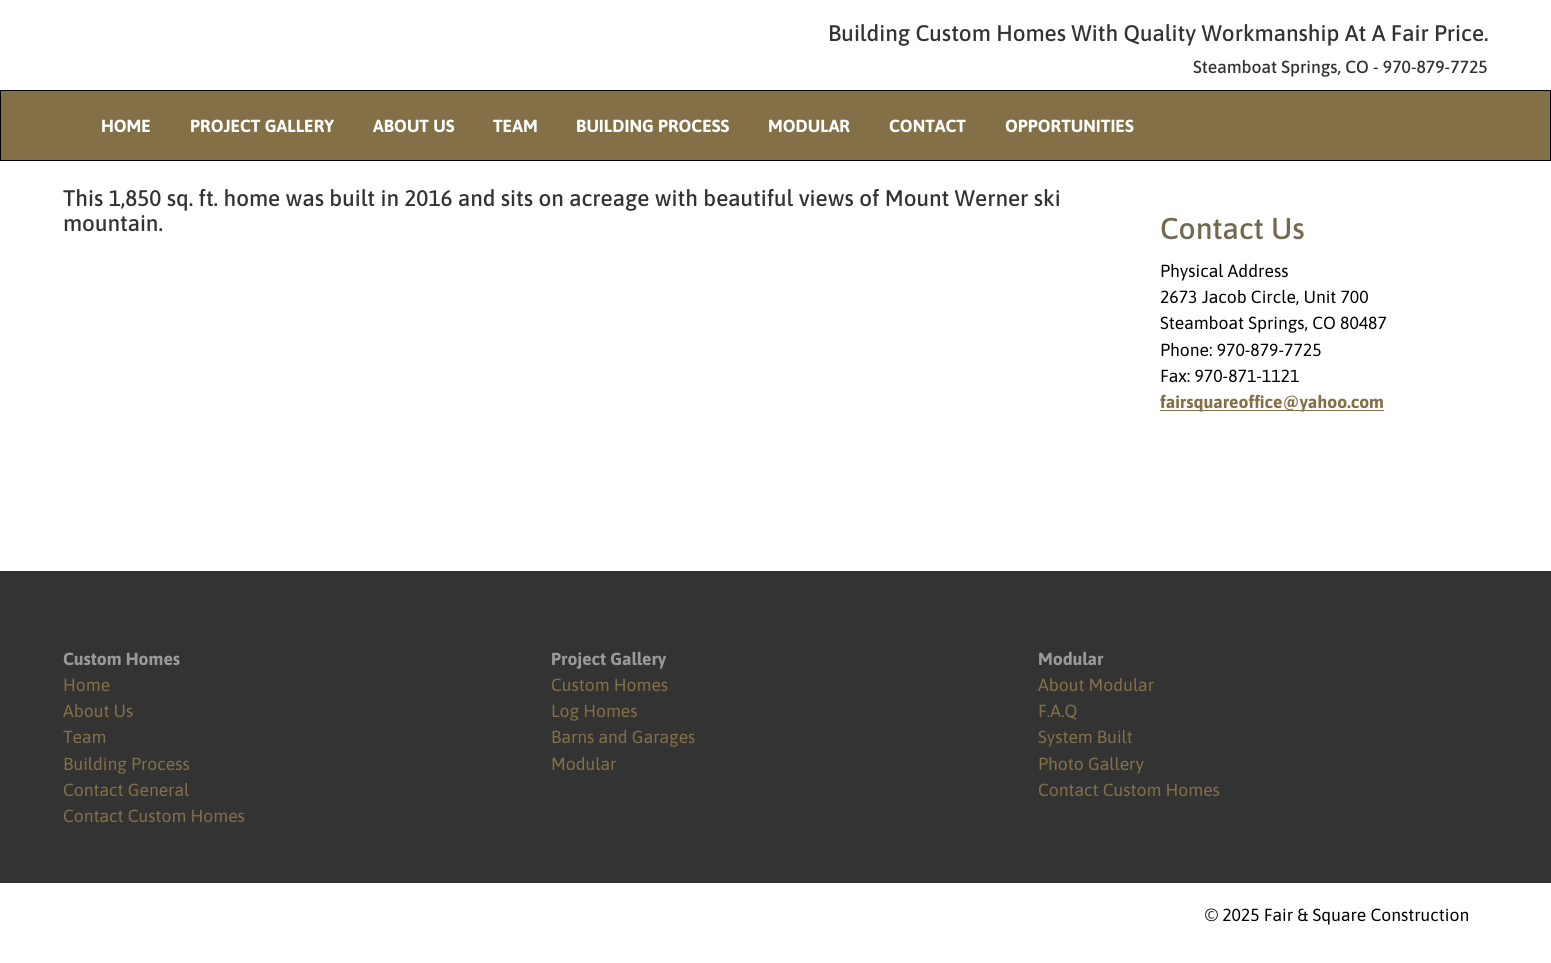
import math
import cairo


def draw(ctx):
	ctx.set_source_rgb(1, 1, 1)
	ctx.paint()
	ctx.select_font_face('Asap Medium')
	ctx.set_font_size(22.5)
	ctx.set_source_rgb(0.2, 0.2, 0.2)
	ctx.move_to(828, 41)
	ctx.show_text('Building Custom Homes With Quality Workmanship At A Fair Price.')
	ctx.set_font_size(17.5)
	ctx.move_to(1193, 73)
	ctx.show_text('Steamboat Springs, CO - 970-879-7725')
	ctx.set_source_rgb(0.518, 0.439, 0.275)
	ctx.rectangle(0.5, 90.5, 1550, 70)
	ctx.fill_preserve()
	ctx.set_source_rgb(0, 0, 0)
	ctx.set_line_width(1)
	ctx.stroke()
	ctx.select_font_face('Asap', cairo.FONT_SLANT_NORMAL, cairo.FONT_WEIGHT_BOLD)
	ctx.set_source_rgb(1, 1, 1)
	for x, y, s in [
		(101, 132, 'HOME'),
		(190, 132, 'PROJECT GALLERY'),
		(373, 132, 'ABOUT US'),
		(493, 132, 'TEAM'),
		(576, 132, 'BUILDING PROCESS'),
		(768, 132, 'MODULAR'),
		(889, 132, 'CONTACT'),
		(1005, 132, 'OPPORTUNITIES'),
	]:
		ctx.move_to(x, y)
		ctx.show_text(s)
	ctx.select_font_face('Asap Medium')
	ctx.set_font_size(22.5)
	ctx.set_source_rgb(0.2, 0.2, 0.2)
	ctx.move_to(63, 206)
	ctx.show_text('This 1,850 sq. ft. home was built in 2016 and sits on acreage with beautiful views of Mount Werner ski')
	ctx.move_to(63, 231)
	ctx.show_text('mountain.')
	ctx.set_font_size(30)
	ctx.set_source_rgb(0.447, 0.412, 0.306)
	ctx.move_to(1160, 239)
	ctx.show_text('Contact Us')
	ctx.select_font_face('Asap')
	ctx.set_font_size(17.5)
	ctx.set_source_rgb(0, 0, 0)
	for x, y, s in [
		(1160, 277, 'Physical Address'),
		(1160, 303, '2673 Jacob Circle, Unit 700'),
		(1160, 329, 'Steamboat Springs, CO 80487'),
		(1160, 356, 'Phone: 970-879-7725'),
		(1160, 382, 'Fax: 970-871-1121'),
	]:
		ctx.move_to(x, y)
		ctx.show_text(s)
	ctx.set_source_rgb(0.518, 0.439, 0.275)
	ctx.rectangle(1160, 410, 224, 1)
	ctx.fill()
	ctx.select_font_face('Asap', cairo.FONT_SLANT_NORMAL, cairo.FONT_WEIGHT_BOLD)
	ctx.move_to(1160, 408)
	ctx.show_text('fairsquareoffice@yahoo.com')
	ctx.set_source_rgb(0.2, 0.2, 0.2)
	ctx.rectangle(0, 571, 1551, 312)
	ctx.fill()
	ctx.set_source_rgb(0.6, 0.6, 0.6)
	ctx.move_to(63, 665)
	ctx.show_text('Custom Homes')
	ctx.select_font_face('Asap')
	ctx.set_source_rgb(0.518, 0.439, 0.275)
	for x, y, s in [
		(63, 691, 'Home'),
		(63, 717, 'About Us'),
		(63, 743, 'Team'),
		(63, 770, 'Building Process'),
		(63, 796, 'Contact General'),
		(63, 822, 'Contact Custom Homes'),
	]:
		ctx.move_to(x, y)
		ctx.show_text(s)
	ctx.select_font_face('Asap', cairo.FONT_SLANT_NORMAL, cairo.FONT_WEIGHT_BOLD)
	ctx.set_source_rgb(0.6, 0.6, 0.6)
	ctx.move_to(551, 665)
	ctx.show_text('Project Gallery')
	ctx.select_font_face('Asap')
	ctx.set_source_rgb(0.518, 0.439, 0.275)
	for x, y, s in [
		(551, 691, 'Custom Homes'),
		(551, 717, 'Log Homes'),
		(551, 743, 'Barns and Garages'),
		(551, 770, 'Modular'),
	]:
		ctx.move_to(x, y)
		ctx.show_text(s)
	ctx.select_font_face('Asap', cairo.FONT_SLANT_NORMAL, cairo.FONT_WEIGHT_BOLD)
	ctx.set_source_rgb(0.6, 0.6, 0.6)
	ctx.move_to(1038, 665)
	ctx.show_text('Modular')
	ctx.select_font_face('Asap')
	ctx.set_source_rgb(0.518, 0.439, 0.275)
	for x, y, s in [
		(1038, 691, 'About Modular'),
		(1038, 717, 'F.A.Q'),
		(1038, 743, 'System Built'),
		(1038, 770, 'Photo Gallery'),
		(1038, 796, 'Contact Custom Homes'),
	]:
		ctx.move_to(x, y)
		ctx.show_text(s)
	ctx.set_source_rgb(0, 0, 0)
	ctx.move_to(1205, 921)
	ctx.show_text('© 2025 Fair & Square Construction')


surface = cairo.ImageSurface(cairo.FORMAT_RGB24, 1551, 963)
ctx = cairo.Context(surface)
options = cairo.FontOptions()
options.set_hint_metrics(cairo.HINT_METRICS_OFF)
options.set_hint_style(cairo.HINT_STYLE_NONE)
ctx.set_font_options(options)
ctx.set_miter_limit(4)
draw(ctx)
surface.write_to_png('image.png')
